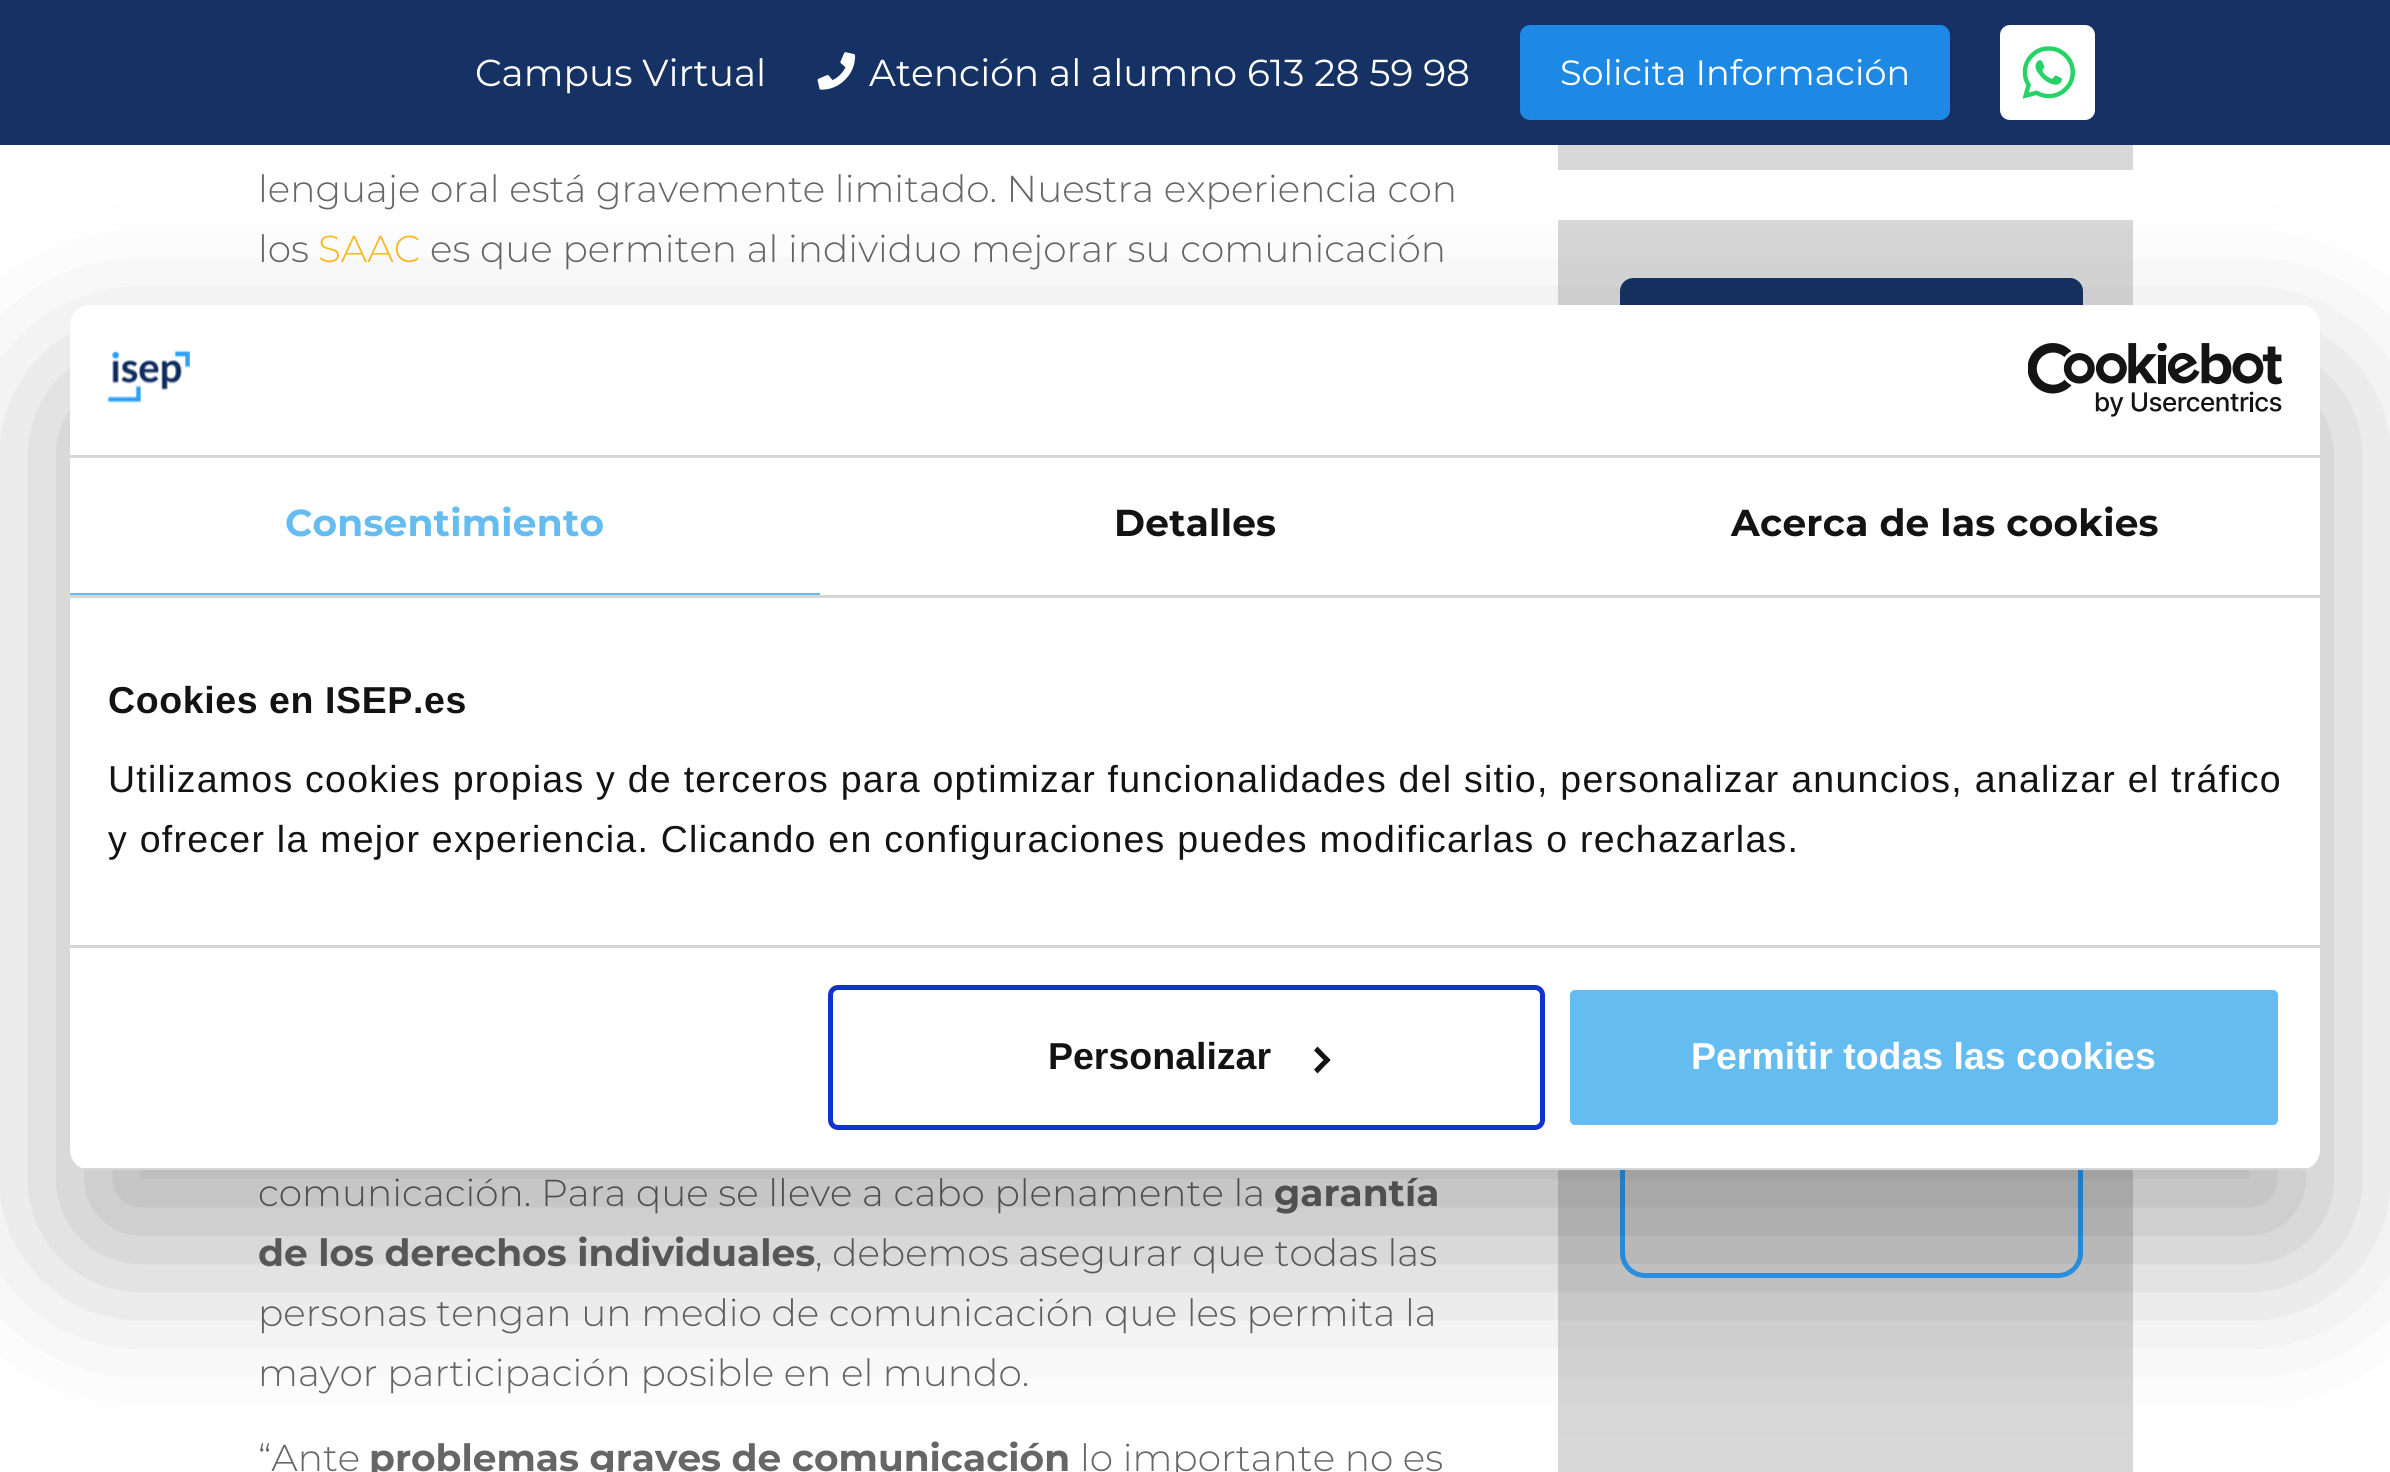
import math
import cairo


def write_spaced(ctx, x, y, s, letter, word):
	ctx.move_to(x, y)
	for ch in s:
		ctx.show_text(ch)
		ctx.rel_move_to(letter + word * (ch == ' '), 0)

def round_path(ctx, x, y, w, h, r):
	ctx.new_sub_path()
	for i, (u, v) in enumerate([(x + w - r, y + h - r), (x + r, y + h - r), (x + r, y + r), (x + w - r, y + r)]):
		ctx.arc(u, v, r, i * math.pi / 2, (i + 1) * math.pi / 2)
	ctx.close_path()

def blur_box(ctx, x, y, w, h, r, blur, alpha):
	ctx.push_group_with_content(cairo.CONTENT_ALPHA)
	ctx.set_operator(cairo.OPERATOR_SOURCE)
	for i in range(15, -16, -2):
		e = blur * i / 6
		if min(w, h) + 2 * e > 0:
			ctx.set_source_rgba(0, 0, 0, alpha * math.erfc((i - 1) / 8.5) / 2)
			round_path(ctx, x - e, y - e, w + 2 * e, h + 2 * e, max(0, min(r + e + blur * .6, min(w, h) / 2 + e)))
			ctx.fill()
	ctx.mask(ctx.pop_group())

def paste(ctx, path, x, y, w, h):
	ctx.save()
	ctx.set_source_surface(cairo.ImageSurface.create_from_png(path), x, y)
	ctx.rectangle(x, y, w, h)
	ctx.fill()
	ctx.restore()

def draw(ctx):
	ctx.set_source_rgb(1, 1, 1)
	ctx.paint()
	ctx.set_source_rgb(0.086, 0.196, 0.392)
	ctx.rectangle(0, 0, 2390, 145)
	ctx.fill()
	ctx.select_font_face('Montserrat')
	ctx.set_font_size(37.5)
	ctx.set_source_rgb(1, 1, 1)
	ctx.move_to(475, 86)
	ctx.show_text('Campus Virtual')
	paste(ctx, 'media/1.png', 817, 52, 39, 38)
	ctx.move_to(869, 86)
	ctx.show_text('Atención al alumno 613 28 59 98')
	ctx.set_source_rgb(0.118, 0.533, 0.898)
	round_path(ctx, 1520, 25, 430, 95, 10)
	ctx.fill()
	ctx.set_font_size(35)
	ctx.set_source_rgb(1, 1, 1)
	ctx.move_to(1560, 85)
	ctx.show_text('Solicita Información')
	round_path(ctx, 2000, 25, 95, 95, 10)
	ctx.fill()
	paste(ctx, 'media/2.png', 2022, 46, 53, 53)
	ctx.select_font_face('Montserrat Light')
	ctx.set_font_size(37.5)
	ctx.set_source_rgb(0.4, 0.4, 0.4)
	ctx.move_to(258, 202)
	ctx.show_text('lenguaje oral está gravemente limitado. Nuestra experiencia con')
	ctx.move_to(258, 262)
	ctx.show_text('los')
	ctx.set_source_rgb(0.992, 0.729, 0.129)
	ctx.move_to(318, 262)
	ctx.show_text('SAAC')
	ctx.set_source_rgb(0.4, 0.4, 0.4)
	ctx.move_to(430, 262)
	ctx.show_text('es que permiten al individuo mejorar su comunicación')
	ctx.move_to(258, 1206)
	ctx.show_text('comunicación. Para que se lleve a cabo plenamente la')
	ctx.select_font_face('Montserrat', cairo.FONT_SLANT_NORMAL, cairo.FONT_WEIGHT_BOLD)
	ctx.move_to(1274, 1206)
	ctx.show_text('garantía')
	ctx.move_to(258, 1266)
	ctx.show_text('de los derechos individuales')
	ctx.select_font_face('Montserrat Light')
	for x, y, s in [
		(815, 1266, ', debemos asegurar que todas las'),
		(258, 1326, 'personas tengan un medio de comunicación que les permita la'),
		(258, 1386, 'mayor participación posible en el mundo.'),
		(258, 1471, '“Ante'),
	]:
		ctx.move_to(x, y)
		ctx.show_text(s)
	ctx.select_font_face('Montserrat', cairo.FONT_SLANT_NORMAL, cairo.FONT_WEIGHT_BOLD)
	ctx.move_to(369, 1471)
	ctx.show_text('problemas graves de comunicación')
	ctx.select_font_face('Montserrat Light')
	ctx.move_to(1080, 1471)
	ctx.show_text('lo importante no es')
	ctx.set_source_rgb(0.847, 0.847, 0.847)
	ctx.rectangle(1558, 145, 575, 25)
	ctx.fill()
	ctx.rectangle(1558, 220, 575, 1252)
	ctx.fill()
	round_path(ctx, 1622.5, 280.5, 458, 995, 22.5)
	ctx.set_source_rgb(0.184, 0.631, 0.976)
	ctx.set_line_width(5)
	ctx.stroke()
	ctx.set_source_rgb(0.086, 0.196, 0.392)
	ctx.new_path()
	ctx.move_to(1633, 278)
	ctx.line_to(2070, 278)
	ctx.curve_to(2077, 278, 2083, 284, 2083, 291)
	ctx.line_to(2083, 428)
	ctx.line_to(1620, 428)
	ctx.line_to(1620, 291)
	ctx.curve_to(1620, 284, 1626, 278, 1633, 278)
	ctx.close_path()
	ctx.fill()
	ctx.set_source_rgb(0, 0, 0)
	blur_box(ctx, 70, 385, 2250, 865, 20, 85, 0.3)
	ctx.set_source_rgb(1, 1, 1)
	round_path(ctx, 70, 305, 2250, 865, 20)
	ctx.fill()
	ctx.set_source_rgb(0.839, 0.839, 0.839)
	ctx.rectangle(70, 455, 2250, 3)
	ctx.fill()
	paste(ctx, 'media/3.png', 107, 350, 83, 53)
	paste(ctx, 'media/4.png', 2028, 343, 255, 74)
	ctx.rectangle(70, 595, 2250, 3)
	ctx.fill()
	ctx.set_source_rgb(0.396, 0.737, 0.941)
	ctx.rectangle(70, 593, 750, 2)
	ctx.fill()
	ctx.select_font_face('Montserrat', cairo.FONT_SLANT_NORMAL, cairo.FONT_WEIGHT_BOLD)
	write_spaced(ctx, 285, 536, 'Consentimiento', 0.25, 0)
	ctx.set_source_rgb(0.078, 0.078, 0.078)
	write_spaced(ctx, 1114, 536, 'Detalles', 0.25, 0)
	write_spaced(ctx, 1731, 536, 'Acerca de las cookies', 0.25, 0)
	ctx.set_source_rgb(0.839, 0.839, 0.839)
	ctx.rectangle(70, 945, 2250, 3)
	ctx.fill()
	ctx.select_font_face('Liberation Sans', cairo.FONT_SLANT_NORMAL, cairo.FONT_WEIGHT_BOLD)
	ctx.set_source_rgb(0.078, 0.078, 0.078)
	write_spaced(ctx, 108, 713, 'Cookies en ISEP.es', 0.6, 0)
	ctx.select_font_face('Liberation Sans')
	write_spaced(ctx, 108, 792, 'Utilizamos cookies propias y de terceros para optimizar funcionalidades del sitio, personalizar anuncios, analizar el tráfico', 1.25, 0)
	write_spaced(ctx, 108, 852, 'y ofrecer la mejor experiencia. Clicando en configuraciones puedes modificarlas o rechazarlas.', 1.25, 0)
	ctx.save()
	round_path(ctx, 70, 305, 2250, 865, 20)
	ctx.clip()
	ctx.set_source_rgb(0.839, 0.839, 0.839)
	ctx.rectangle(81, 1168, 2228, 2)
	ctx.fill()
	ctx.restore()
	round_path(ctx, 830.5, 987.5, 712, 140, 7.5)
	ctx.set_source_rgb(0.063, 0.196, 0.812)
	ctx.stroke()
	ctx.select_font_face('Liberation Sans', cairo.FONT_SLANT_NORMAL, cairo.FONT_WEIGHT_BOLD)
	ctx.set_source_rgb(0.078, 0.078, 0.078)
	ctx.move_to(1048, 1069)
	ctx.show_text('Personalizar')
	ctx.new_path()
	ctx.move_to(1317.5, 1046.5)
	ctx.line_to(1330.5, 1060)
	ctx.line_to(1327, 1063.5)
	ctx.line_to(1314, 1050.5)
	ctx.close_path()
	ctx.fill()
	ctx.new_path()
	ctx.move_to(1327, 1056.5)
	ctx.line_to(1330.5, 1060)
	ctx.line_to(1317.5, 1073.5)
	ctx.line_to(1314, 1069.5)
	ctx.close_path()
	ctx.fill()
	ctx.set_source_rgb(0.396, 0.737, 0.941)
	round_path(ctx, 1567.5, 987.5, 713, 140, 7.5)
	ctx.fill_preserve()
	ctx.set_source_rgb(1, 1, 1)
	ctx.stroke()
	ctx.move_to(1691, 1069)
	ctx.show_text('Permitir todas las cookies')


surface = cairo.ImageSurface(cairo.FORMAT_RGB24, 2390, 1472)
ctx = cairo.Context(surface)
options = cairo.FontOptions()
options.set_hint_metrics(cairo.HINT_METRICS_OFF)
options.set_hint_style(cairo.HINT_STYLE_NONE)
ctx.set_font_options(options)
ctx.set_miter_limit(4)
draw(ctx)
surface.write_to_png('image.png')
